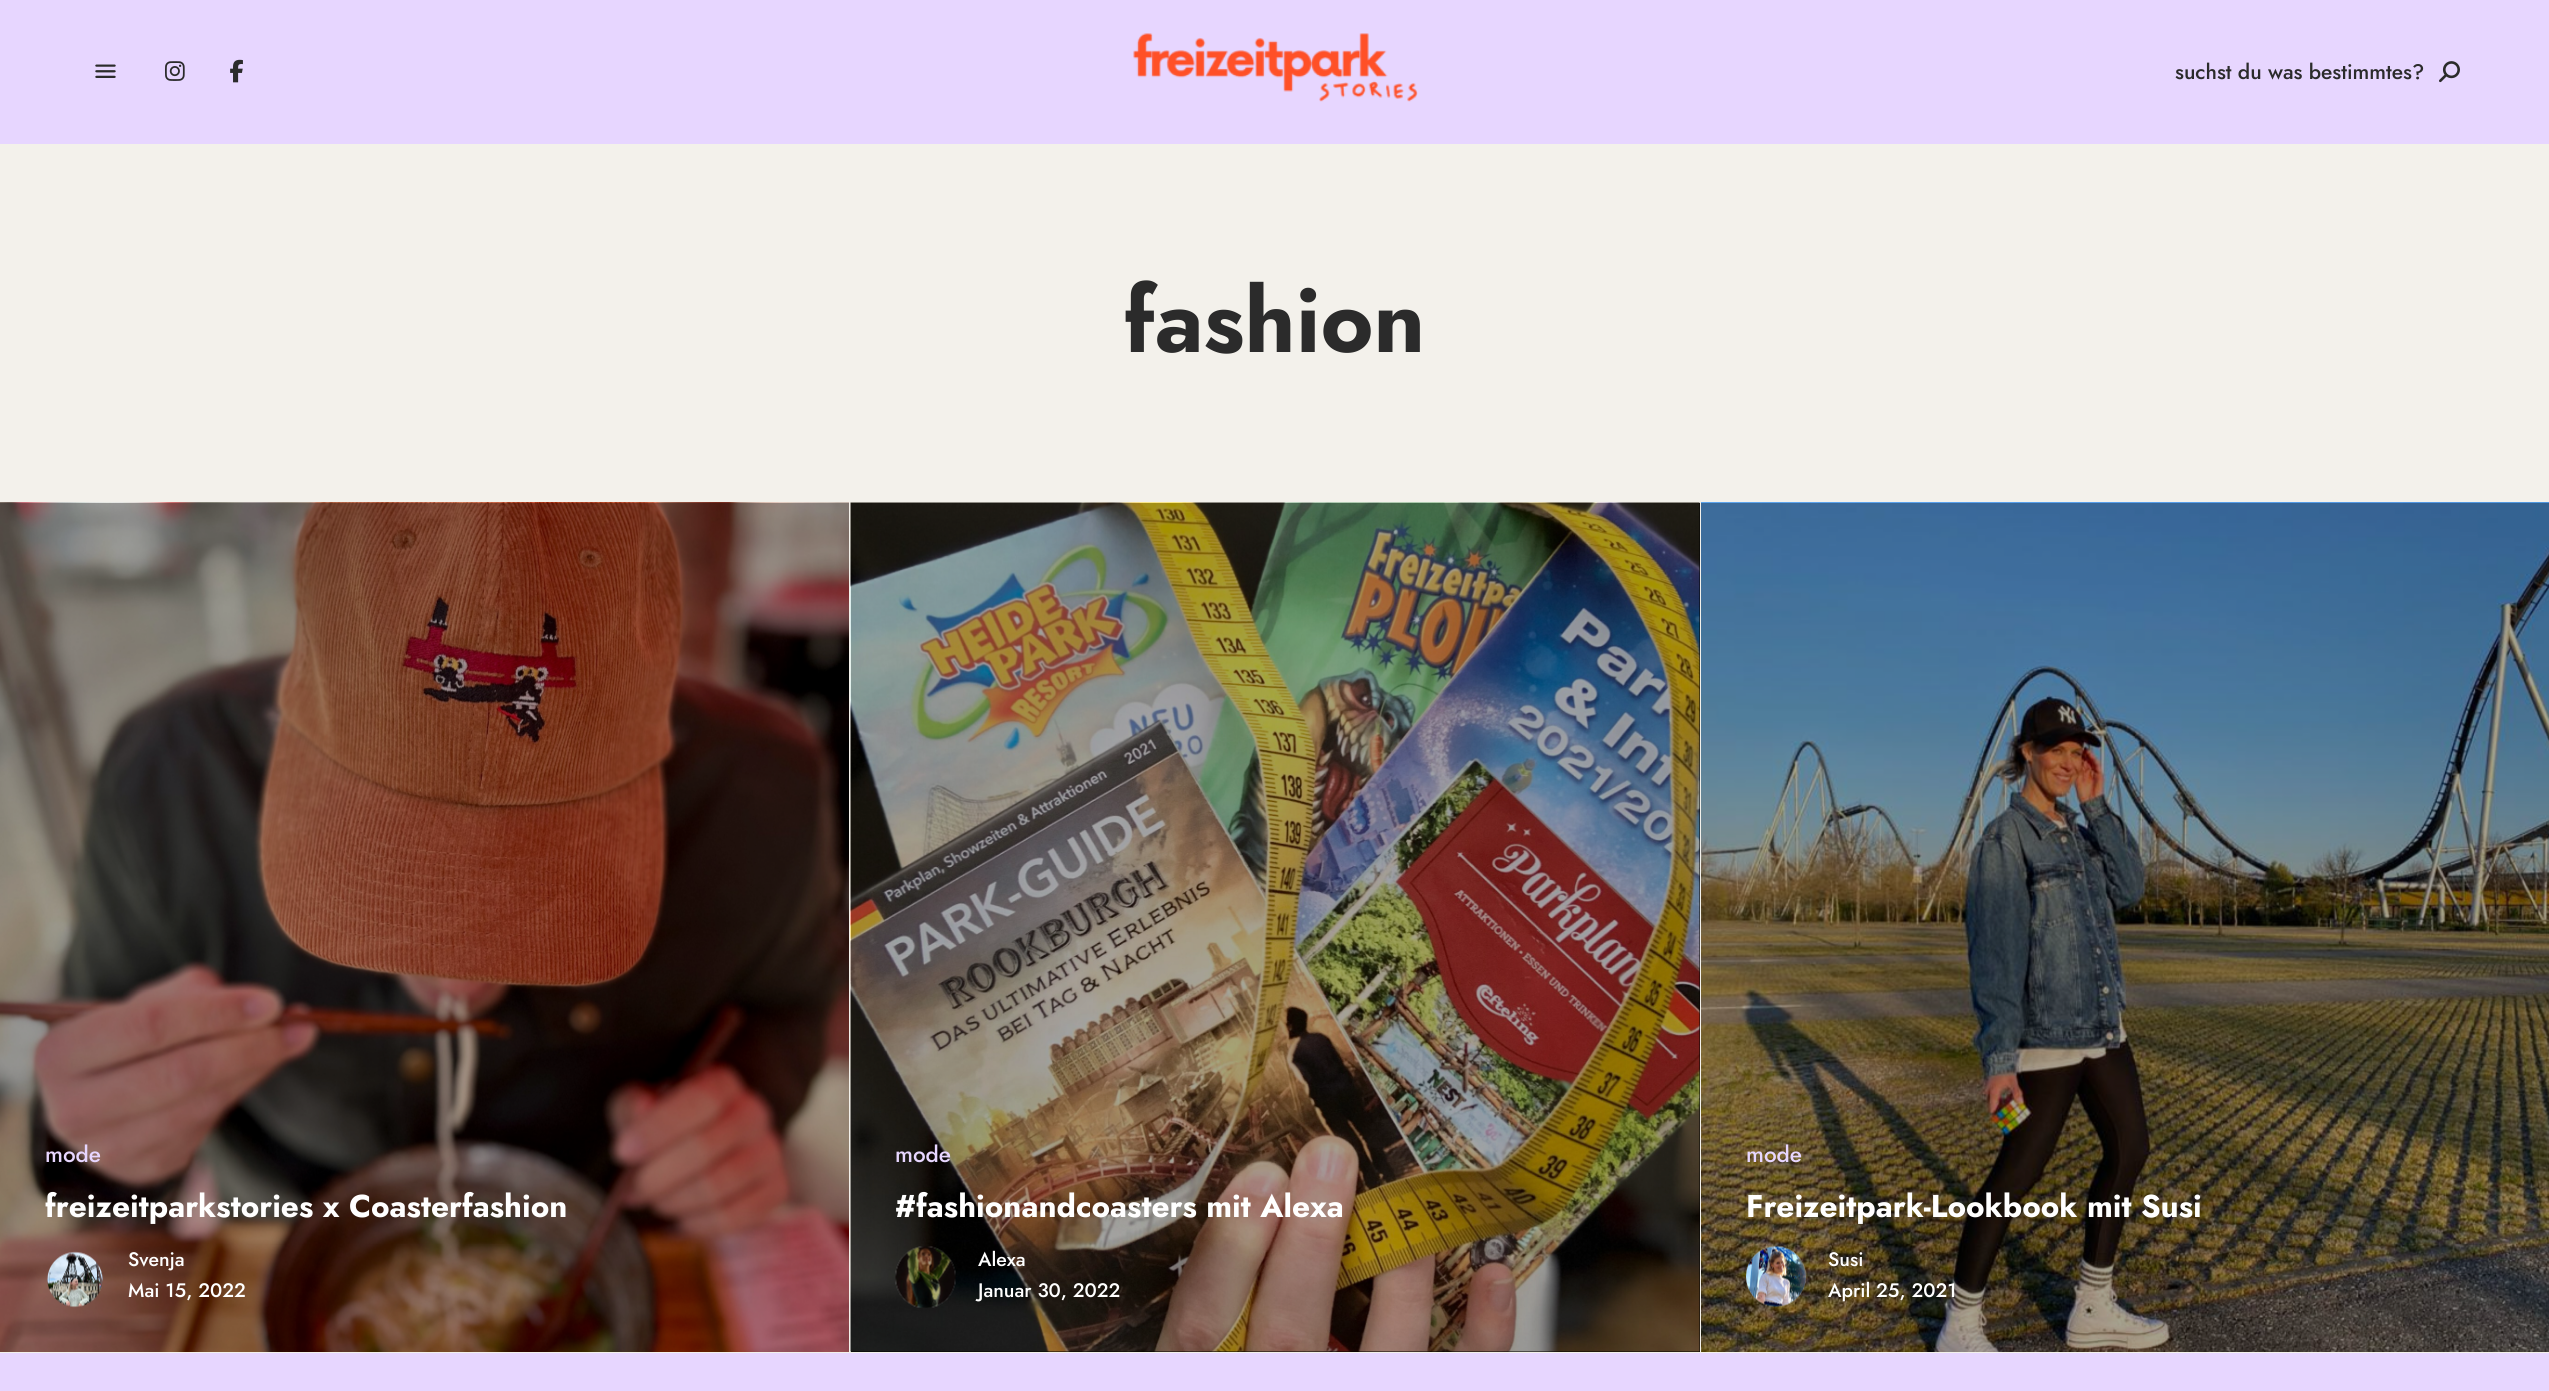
import math
import cairo


def paste(ctx, path, x, y, w, h):
	ctx.save()
	ctx.set_source_surface(cairo.ImageSurface.create_from_png(path), x, y)
	ctx.rectangle(x, y, w, h)
	ctx.fill()
	ctx.restore()

def draw(ctx):
	ctx.set_source_rgb(0.953, 0.945, 0.918)
	ctx.paint()
	ctx.set_source_rgb(0.906, 0.839, 1)
	ctx.rectangle(0, 0, 2549, 144)
	ctx.fill()
	paste(ctx, 'media/1.png', 95, 64, 21, 14)
	paste(ctx, 'media/2.png', 165, 61, 20, 20)
	paste(ctx, 'media/3.png', 230, 59, 13, 24)
	paste(ctx, 'media/4.png', 1133, 33, 285, 69)
	ctx.select_font_face('Jost Medium')
	ctx.set_font_size(21)
	ctx.set_source_rgb(0.169, 0.169, 0.169)
	ctx.move_to(2175, 79)
	ctx.show_text('suchst du was bestimmtes?')
	paste(ctx, 'media/5.png', 2439, 61, 21, 22)
	ctx.select_font_face('Jost', cairo.FONT_SLANT_NORMAL, cairo.FONT_WEIGHT_BOLD)
	ctx.set_font_size(90)
	ctx.move_to(1124, 352)
	ctx.show_text('fashion')
	paste(ctx, 'media/6.png', 0, 502, 849, 850)
	ctx.select_font_face('Jost Medium')
	ctx.set_font_size(22.5)
	ctx.set_source_rgb(0.906, 0.839, 1)
	ctx.move_to(45, 1162)
	ctx.show_text('mode')
	ctx.select_font_face('Jost', cairo.FONT_SLANT_NORMAL, cairo.FONT_WEIGHT_BOLD)
	ctx.set_font_size(31.5)
	ctx.set_source_rgb(1, 1, 1)
	ctx.move_to(45, 1217)
	ctx.show_text('freizeitparkstories x Coasterfashion')
	paste(ctx, 'media/7.png', 47, 1251, 56, 57)
	ctx.select_font_face('Jost Medium')
	ctx.set_font_size(19.5)
	ctx.move_to(128, 1266)
	ctx.show_text('Svenja')
	ctx.move_to(128, 1297)
	ctx.show_text('Mai 15, 2022')
	ctx.set_source_rgb(0, 0, 0)
	ctx.rectangle(851, 503, 849, 849)
	ctx.fill()
	paste(ctx, 'media/8.png', 850, 502, 850, 850)
	ctx.set_font_size(22.5)
	ctx.set_source_rgb(0.906, 0.839, 1)
	ctx.move_to(895, 1162)
	ctx.show_text('mode')
	ctx.select_font_face('Jost', cairo.FONT_SLANT_NORMAL, cairo.FONT_WEIGHT_BOLD)
	ctx.set_font_size(31.5)
	ctx.set_source_rgb(1, 1, 1)
	ctx.move_to(895, 1217)
	ctx.show_text('#fashionandcoasters mit Alexa')
	paste(ctx, 'media/9.png', 895, 1246, 61, 62)
	ctx.select_font_face('Jost Medium')
	ctx.set_font_size(19.5)
	ctx.move_to(978, 1266)
	ctx.show_text('Alexa')
	ctx.move_to(978, 1297)
	ctx.show_text('Januar 30, 2022')
	paste(ctx, 'media/10.png', 1701, 502, 848, 850)
	ctx.set_font_size(22.5)
	ctx.set_source_rgb(0.906, 0.839, 1)
	ctx.move_to(1746, 1162)
	ctx.show_text('mode')
	ctx.select_font_face('Jost', cairo.FONT_SLANT_NORMAL, cairo.FONT_WEIGHT_BOLD)
	ctx.set_font_size(31.5)
	ctx.set_source_rgb(1, 1, 1)
	ctx.move_to(1746, 1217)
	ctx.show_text('Freizeitpark-Lookbook mit Susi')
	paste(ctx, 'media/11.png', 1746, 1246, 60, 61)
	ctx.select_font_face('Jost Medium')
	ctx.set_font_size(19.5)
	ctx.move_to(1828, 1266)
	ctx.show_text('Susi')
	ctx.move_to(1828, 1297)
	ctx.show_text('April 25, 2021')
	ctx.set_source_rgb(0.906, 0.839, 1)
	ctx.rectangle(0, 1353, 2549, 38)
	ctx.fill()


surface = cairo.ImageSurface(cairo.FORMAT_RGB24, 2549, 1391)
ctx = cairo.Context(surface)
options = cairo.FontOptions()
options.set_hint_metrics(cairo.HINT_METRICS_OFF)
options.set_hint_style(cairo.HINT_STYLE_NONE)
ctx.set_font_options(options)
ctx.set_miter_limit(4)
draw(ctx)
surface.write_to_png('image.png')
